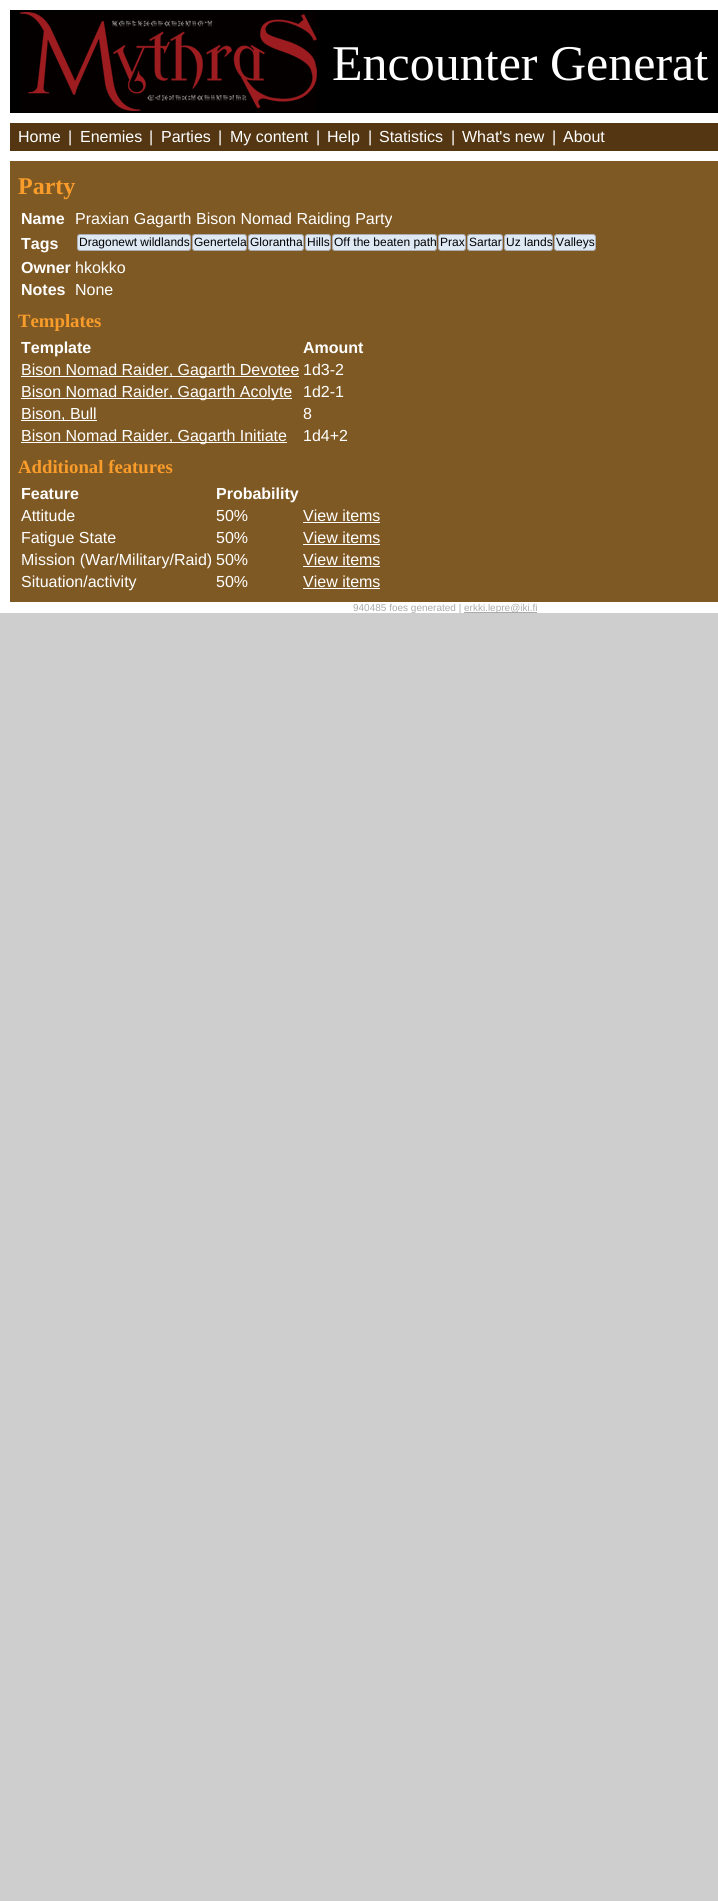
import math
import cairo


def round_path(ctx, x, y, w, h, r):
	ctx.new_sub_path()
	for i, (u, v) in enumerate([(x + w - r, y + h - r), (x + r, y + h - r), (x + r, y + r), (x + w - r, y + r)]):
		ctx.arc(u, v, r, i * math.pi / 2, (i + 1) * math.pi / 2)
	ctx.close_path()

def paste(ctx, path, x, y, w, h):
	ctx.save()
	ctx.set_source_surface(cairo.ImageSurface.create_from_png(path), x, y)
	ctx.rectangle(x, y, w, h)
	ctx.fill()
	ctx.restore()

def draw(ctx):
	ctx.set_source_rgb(0.808, 0.808, 0.808)
	ctx.paint()
	ctx.set_source_rgb(1, 1, 1)
	ctx.rectangle(0, 0, 718, 613)
	ctx.fill()
	ctx.set_source_rgb(0, 0, 0)
	ctx.rectangle(10, 10, 708, 103)
	ctx.fill()
	paste(ctx, 'media/1.png', 20, 12, 297, 99)
	ctx.select_font_face('Liberation Serif')
	ctx.set_font_size(50)
	ctx.set_source_rgb(1, 1, 1)
	ctx.move_to(332, 80)
	ctx.show_text('Encounter Generat')
	ctx.set_source_rgb(0.329, 0.216, 0.071)
	ctx.rectangle(10, 123, 708, 28)
	ctx.fill()
	ctx.select_font_face('Liberation Sans')
	ctx.set_font_size(16)
	ctx.set_source_rgb(1, 1, 1)
	for x, y, s in [
		(18, 142, 'Home'),
		(68, 142, '|'),
		(80, 142, 'Enemies'),
		(149, 142, '|'),
		(161, 142, 'Parties'),
		(218, 142, '|'),
		(230, 142, 'My content'),
		(316, 142, '|'),
		(327, 142, 'Help'),
		(368, 142, '|'),
		(379, 142, 'Statistics'),
		(451, 142, '|'),
		(462, 142, 'What\'s new'),
		(552, 142, '|'),
		(563, 142, 'About'),
	]:
		ctx.move_to(x, y)
		ctx.show_text(s)
	ctx.set_source_rgb(0.498, 0.349, 0.141)
	ctx.rectangle(10, 161, 708, 441)
	ctx.fill()
	ctx.select_font_face('Liberation Serif', cairo.FONT_SLANT_NORMAL, cairo.FONT_WEIGHT_BOLD)
	ctx.set_font_size(24)
	ctx.set_source_rgb(0.976, 0.612, 0.165)
	ctx.move_to(18, 194)
	ctx.show_text('Party')
	ctx.select_font_face('Liberation Sans', cairo.FONT_SLANT_NORMAL, cairo.FONT_WEIGHT_BOLD)
	ctx.set_font_size(16)
	ctx.set_source_rgb(1, 1, 1)
	ctx.move_to(21, 224)
	ctx.show_text('Name')
	ctx.select_font_face('Liberation Sans')
	ctx.move_to(75, 224)
	ctx.show_text('Praxian Gagarth Bison Nomad Raiding Party')
	ctx.select_font_face('Liberation Sans', cairo.FONT_SLANT_NORMAL, cairo.FONT_WEIGHT_BOLD)
	ctx.move_to(21, 249)
	ctx.show_text('Tags')
	ctx.set_source_rgb(0.871, 0.914, 0.957)
	round_path(ctx, 77.5, 234.5, 113, 16, 2.5)
	ctx.fill_preserve()
	ctx.set_source_rgb(0.671, 0.678, 0.702)
	ctx.set_line_width(1)
	ctx.stroke()
	ctx.select_font_face('Liberation Sans')
	ctx.set_font_size(12)
	ctx.set_source_rgb(0, 0, 0)
	ctx.move_to(79, 246)
	ctx.show_text('Dragonewt wildlands')
	ctx.set_source_rgb(0.871, 0.914, 0.957)
	round_path(ctx, 192.5, 234.5, 54, 16, 2.5)
	ctx.fill_preserve()
	ctx.set_source_rgb(0.671, 0.678, 0.702)
	ctx.stroke()
	ctx.set_source_rgb(0, 0, 0)
	ctx.move_to(194, 246)
	ctx.show_text('Genertela')
	ctx.set_source_rgb(0.871, 0.914, 0.957)
	round_path(ctx, 248.5, 234.5, 55, 16, 2.5)
	ctx.fill_preserve()
	ctx.set_source_rgb(0.671, 0.678, 0.702)
	ctx.stroke()
	ctx.set_source_rgb(0, 0, 0)
	ctx.move_to(250, 246)
	ctx.show_text('Glorantha')
	ctx.set_source_rgb(0.871, 0.914, 0.957)
	round_path(ctx, 305.5, 234.5, 25, 16, 2.5)
	ctx.fill_preserve()
	ctx.set_source_rgb(0.671, 0.678, 0.702)
	ctx.stroke()
	ctx.set_source_rgb(0, 0, 0)
	ctx.move_to(307, 246)
	ctx.show_text('Hills')
	ctx.set_source_rgb(0.871, 0.914, 0.957)
	round_path(ctx, 332.5, 234.5, 104, 16, 2.5)
	ctx.fill_preserve()
	ctx.set_source_rgb(0.671, 0.678, 0.702)
	ctx.stroke()
	ctx.set_source_rgb(0, 0, 0)
	ctx.move_to(334, 246)
	ctx.show_text('Off the beaten path')
	ctx.set_source_rgb(0.871, 0.914, 0.957)
	round_path(ctx, 438.5, 234.5, 27, 16, 2.5)
	ctx.fill_preserve()
	ctx.set_source_rgb(0.671, 0.678, 0.702)
	ctx.stroke()
	ctx.set_source_rgb(0, 0, 0)
	ctx.move_to(440, 246)
	ctx.show_text('Prax')
	ctx.set_source_rgb(0.871, 0.914, 0.957)
	round_path(ctx, 467.5, 234.5, 35, 16, 2.5)
	ctx.fill_preserve()
	ctx.set_source_rgb(0.671, 0.678, 0.702)
	ctx.stroke()
	ctx.set_source_rgb(0, 0, 0)
	ctx.move_to(469, 246)
	ctx.show_text('Sartar')
	ctx.set_source_rgb(0.871, 0.914, 0.957)
	round_path(ctx, 504.5, 234.5, 48, 16, 2.5)
	ctx.fill_preserve()
	ctx.set_source_rgb(0.671, 0.678, 0.702)
	ctx.stroke()
	ctx.set_source_rgb(0, 0, 0)
	ctx.move_to(506, 246)
	ctx.show_text('Uz lands')
	ctx.set_source_rgb(0.871, 0.914, 0.957)
	round_path(ctx, 554.5, 234.5, 41, 16, 2.5)
	ctx.fill_preserve()
	ctx.set_source_rgb(0.671, 0.678, 0.702)
	ctx.stroke()
	ctx.set_source_rgb(0, 0, 0)
	ctx.move_to(556, 246)
	ctx.show_text('Valleys')
	ctx.select_font_face('Liberation Sans', cairo.FONT_SLANT_NORMAL, cairo.FONT_WEIGHT_BOLD)
	ctx.set_font_size(16)
	ctx.set_source_rgb(1, 1, 1)
	ctx.move_to(21, 273)
	ctx.show_text('Owner')
	ctx.select_font_face('Liberation Sans')
	ctx.move_to(75, 273)
	ctx.show_text('hkokko')
	ctx.select_font_face('Liberation Sans', cairo.FONT_SLANT_NORMAL, cairo.FONT_WEIGHT_BOLD)
	ctx.move_to(21, 295)
	ctx.show_text('Notes')
	ctx.select_font_face('Liberation Sans')
	ctx.move_to(75, 295)
	ctx.show_text('None')
	ctx.select_font_face('Liberation Serif', cairo.FONT_SLANT_NORMAL, cairo.FONT_WEIGHT_BOLD)
	ctx.set_font_size(18.75)
	ctx.set_source_rgb(0.976, 0.612, 0.165)
	ctx.move_to(18, 327)
	ctx.show_text('Templates')
	ctx.select_font_face('Liberation Sans', cairo.FONT_SLANT_NORMAL, cairo.FONT_WEIGHT_BOLD)
	ctx.set_font_size(16)
	ctx.set_source_rgb(1, 1, 1)
	ctx.move_to(21, 353)
	ctx.show_text('Template')
	ctx.move_to(303, 353)
	ctx.show_text('Amount')
	ctx.rectangle(21, 376, 278, 1)
	ctx.fill()
	ctx.select_font_face('Liberation Sans')
	ctx.move_to(21, 375)
	ctx.show_text('Bison Nomad Raider, Gagarth Devotee')
	ctx.move_to(303, 375)
	ctx.show_text('1d3-2')
	ctx.rectangle(21, 398, 271, 1)
	ctx.fill()
	ctx.move_to(21, 397)
	ctx.show_text('Bison Nomad Raider, Gagarth Acolyte')
	ctx.move_to(303, 397)
	ctx.show_text('1d2-1')
	ctx.rectangle(21, 420, 76, 1)
	ctx.fill()
	ctx.move_to(21, 419)
	ctx.show_text('Bison, Bull')
	ctx.move_to(303, 419)
	ctx.show_text('8')
	ctx.rectangle(21, 442, 266, 1)
	ctx.fill()
	ctx.move_to(21, 441)
	ctx.show_text('Bison Nomad Raider, Gagarth Initiate')
	ctx.move_to(303, 441)
	ctx.show_text('1d4+2')
	ctx.select_font_face('Liberation Serif', cairo.FONT_SLANT_NORMAL, cairo.FONT_WEIGHT_BOLD)
	ctx.set_font_size(18.75)
	ctx.set_source_rgb(0.976, 0.612, 0.165)
	ctx.move_to(18, 473)
	ctx.show_text('Additional features')
	ctx.select_font_face('Liberation Sans', cairo.FONT_SLANT_NORMAL, cairo.FONT_WEIGHT_BOLD)
	ctx.set_font_size(16)
	ctx.set_source_rgb(1, 1, 1)
	ctx.move_to(21, 499)
	ctx.show_text('Feature')
	ctx.move_to(216, 499)
	ctx.show_text('Probability')
	ctx.select_font_face('Liberation Sans')
	for x, y, s in [
		(21, 521, 'Attitude'),
		(216, 521, '50%'),
		(303, 521, 'View items'),
	]:
		ctx.move_to(x, y)
		ctx.show_text(s)
	ctx.rectangle(303, 522, 77, 1)
	ctx.fill()
	for x, y, s in [
		(21, 543, 'Fatigue State'),
		(216, 543, '50%'),
		(303, 543, 'View items'),
	]:
		ctx.move_to(x, y)
		ctx.show_text(s)
	ctx.rectangle(303, 544, 77, 1)
	ctx.fill()
	for x, y, s in [
		(21, 565, 'Mission (War/Military/Raid)'),
		(216, 565, '50%'),
		(303, 565, 'View items'),
	]:
		ctx.move_to(x, y)
		ctx.show_text(s)
	ctx.rectangle(303, 566, 77, 1)
	ctx.fill()
	for x, y, s in [
		(21, 587, 'Situation/activity'),
		(216, 587, '50%'),
		(303, 587, 'View items'),
	]:
		ctx.move_to(x, y)
		ctx.show_text(s)
	ctx.rectangle(303, 588, 77, 1)
	ctx.fill()
	ctx.set_font_size(10)
	ctx.set_source_rgb(0.667, 0.667, 0.667)
	ctx.move_to(353, 611)
	ctx.show_text('940485 foes generated |')
	ctx.rectangle(464, 612, 73, 1)
	ctx.fill()
	ctx.move_to(464, 611)
	ctx.show_text('erkki.lepre@iki.fi')


surface = cairo.ImageSurface(cairo.FORMAT_RGB24, 718, 1901)
ctx = cairo.Context(surface)
options = cairo.FontOptions()
options.set_hint_metrics(cairo.HINT_METRICS_OFF)
options.set_hint_style(cairo.HINT_STYLE_NONE)
ctx.set_font_options(options)
ctx.set_miter_limit(4)
draw(ctx)
surface.write_to_png('image.png')
